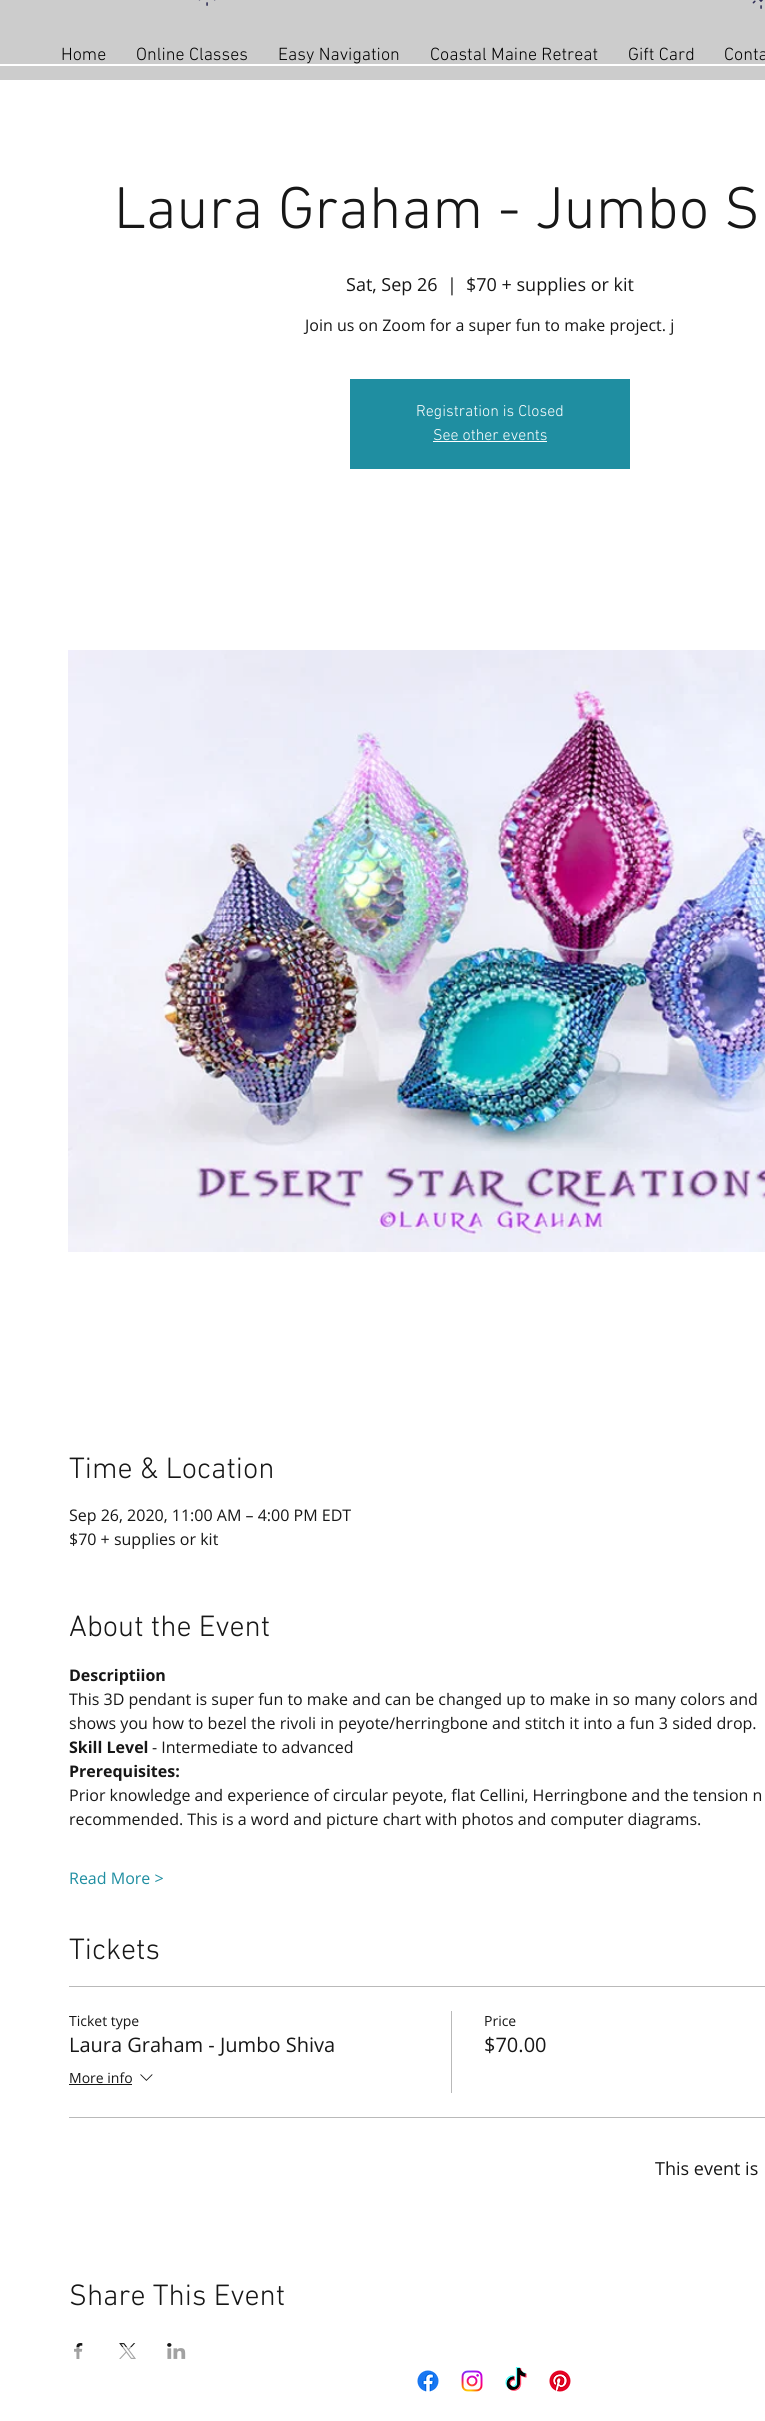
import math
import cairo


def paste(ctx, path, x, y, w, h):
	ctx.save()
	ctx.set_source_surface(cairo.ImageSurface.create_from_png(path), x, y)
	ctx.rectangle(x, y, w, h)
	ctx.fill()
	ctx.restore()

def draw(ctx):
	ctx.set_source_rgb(1, 1, 1)
	ctx.paint()
	ctx.set_source_rgb(0.8, 0.8, 0.8)
	ctx.rectangle(0, 0, 765, 80)
	ctx.fill()
	ctx.set_source_rgb(1, 1, 1)
	ctx.rectangle(0, 64, 765, 2)
	ctx.fill()
	paste(ctx, 'media/1.png', 198, 0, 18, 6)
	paste(ctx, 'media/2.png', 752, 0, 11, 9)
	ctx.select_font_face('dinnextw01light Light')
	ctx.set_font_size(18)
	ctx.set_source_rgb(0, 0, 0)
	for x, y, s in [
		(61, 60, 'Home'),
		(136, 60, 'Online Classes'),
		(278, 60, 'Easy Navigation'),
		(430, 60, 'Coastal Maine Retreat'),
		(628, 60, 'Gift Card'),
		(724, 60, 'Conta'),
	]:
		ctx.move_to(x, y)
		ctx.show_text(s)
	ctx.set_font_size(60)
	ctx.set_source_rgb(0.09, 0.09, 0.09)
	ctx.move_to(114, 228)
	ctx.show_text('Laura Graham - Jumbo S')
	ctx.select_font_face('Open Sans')
	ctx.set_font_size(18)
	for x, y, s in [
		(346, 291, 'Sat, Sep 26'),
		(447, 291, '|'),
		(466, 291, '$70 + supplies or kit'),
	]:
		ctx.move_to(x, y)
		ctx.show_text(s)
	ctx.set_font_size(16)
	ctx.move_to(305, 331)
	ctx.show_text('Join us on Zoom for a super fun to make project. j')
	ctx.set_source_rgb(0.122, 0.557, 0.631)
	ctx.rectangle(350, 379, 280, 90)
	ctx.fill()
	ctx.select_font_face('dinnextw01light Light')
	ctx.set_source_rgb(1, 1, 1)
	ctx.move_to(416, 416)
	ctx.show_text('Registration is Closed')
	ctx.move_to(433, 440)
	ctx.show_text('See other events')
	ctx.rectangle(433, 441, 114, 1)
	ctx.fill()
	paste(ctx, 'media/3.png', 68, 650, 697, 602)
	ctx.set_font_size(30)
	ctx.set_source_rgb(0.09, 0.09, 0.09)
	ctx.move_to(69, 1478)
	ctx.show_text('Time & Location')
	ctx.select_font_face('Open Sans')
	ctx.set_font_size(16)
	ctx.move_to(69, 1521)
	ctx.show_text('Sep 26, 2020, 11:00 AM – 4:00 PM EDT')
	ctx.move_to(69, 1545)
	ctx.show_text('$70 + supplies or kit')
	ctx.select_font_face('dinnextw01light Light')
	ctx.set_font_size(30)
	ctx.move_to(69, 1636)
	ctx.show_text('About the Event')
	ctx.select_font_face('Open Sans', cairo.FONT_SLANT_NORMAL, cairo.FONT_WEIGHT_BOLD)
	ctx.set_font_size(16)
	ctx.move_to(69, 1681)
	ctx.show_text('Descriptiion')
	ctx.select_font_face('Open Sans')
	ctx.move_to(69, 1705)
	ctx.show_text('This 3D pendant is super fun to make and can be changed up to make in so many colors and')
	ctx.move_to(69, 1729)
	ctx.show_text('shows you how to bezel the rivoli in peyote/herringbone and stitch it into a fun 3 sided drop.')
	ctx.select_font_face('Open Sans', cairo.FONT_SLANT_NORMAL, cairo.FONT_WEIGHT_BOLD)
	ctx.move_to(69, 1753)
	ctx.show_text('Skill Level')
	ctx.select_font_face('Open Sans')
	ctx.move_to(152, 1753)
	ctx.show_text('- Intermediate to advanced')
	ctx.select_font_face('Open Sans', cairo.FONT_SLANT_NORMAL, cairo.FONT_WEIGHT_BOLD)
	ctx.move_to(69, 1777)
	ctx.show_text('Prerequisites:')
	ctx.select_font_face('Open Sans')
	ctx.move_to(69, 1801)
	ctx.show_text('Prior knowledge and experience of circular peyote, flat Cellini, Herringbone and the tension n')
	ctx.move_to(69, 1825)
	ctx.show_text('recommended. This is a word and picture chart with photos and computer diagrams.')
	ctx.set_source_rgb(0.122, 0.557, 0.631)
	ctx.move_to(69, 1884)
	ctx.show_text('Read More >')
	ctx.select_font_face('dinnextw01light Light')
	ctx.set_font_size(30)
	ctx.set_source_rgb(0.09, 0.09, 0.09)
	ctx.move_to(69, 1959)
	ctx.show_text('Tickets')
	ctx.set_source_rgb(0.725, 0.725, 0.725)
	ctx.rectangle(69, 1986, 696, 1)
	ctx.fill()
	ctx.rectangle(69, 2117, 696, 1)
	ctx.fill()
	ctx.select_font_face('Open Sans')
	ctx.set_font_size(14)
	ctx.set_source_rgb(0.09, 0.09, 0.09)
	ctx.move_to(69, 2026)
	ctx.show_text('Ticket type')
	ctx.set_font_size(20)
	ctx.move_to(69, 2052)
	ctx.show_text('Laura Graham - Jumbo Shiva')
	ctx.set_font_size(14)
	ctx.move_to(69, 2083)
	ctx.show_text('More info')
	ctx.rectangle(69, 2084, 63, 1)
	ctx.fill()
	paste(ctx, 'media/4.png', 140, 2074, 13, 7)
	ctx.set_source_rgb(0.725, 0.725, 0.725)
	ctx.rectangle(451, 2011, 1, 82)
	ctx.fill()
	ctx.set_source_rgb(0.09, 0.09, 0.09)
	ctx.move_to(484, 2026)
	ctx.show_text('Price')
	ctx.set_font_size(20)
	ctx.move_to(484, 2052)
	ctx.show_text('$70.00')
	ctx.set_font_size(18)
	ctx.move_to(655, 2175)
	ctx.show_text('This event is')
	ctx.select_font_face('dinnextw01light Light')
	ctx.set_font_size(30)
	ctx.move_to(69, 2305)
	ctx.show_text('Share This Event')
	paste(ctx, 'media/5.png', 74, 2343, 9, 16)
	paste(ctx, 'media/6.png', 119, 2343, 17, 16)
	paste(ctx, 'media/7.png', 167, 2343, 19, 16)
	ctx.set_source_rgba(1, 1, 1, 0.6)
	ctx.rectangle(74, 2347, 112, 12)
	ctx.fill()
	paste(ctx, 'media/8.png', 417, 2370, 22, 22)
	paste(ctx, 'media/9.png', 461, 2370, 22, 22)
	paste(ctx, 'media/10.png', 505, 2367, 22, 24)
	paste(ctx, 'media/11.png', 549, 2370, 22, 22)


surface = cairo.ImageSurface(cairo.FORMAT_RGB24, 765, 2421)
ctx = cairo.Context(surface)
options = cairo.FontOptions()
options.set_hint_metrics(cairo.HINT_METRICS_OFF)
options.set_hint_style(cairo.HINT_STYLE_NONE)
ctx.set_font_options(options)
ctx.set_miter_limit(4)
draw(ctx)
surface.write_to_png('image.png')
